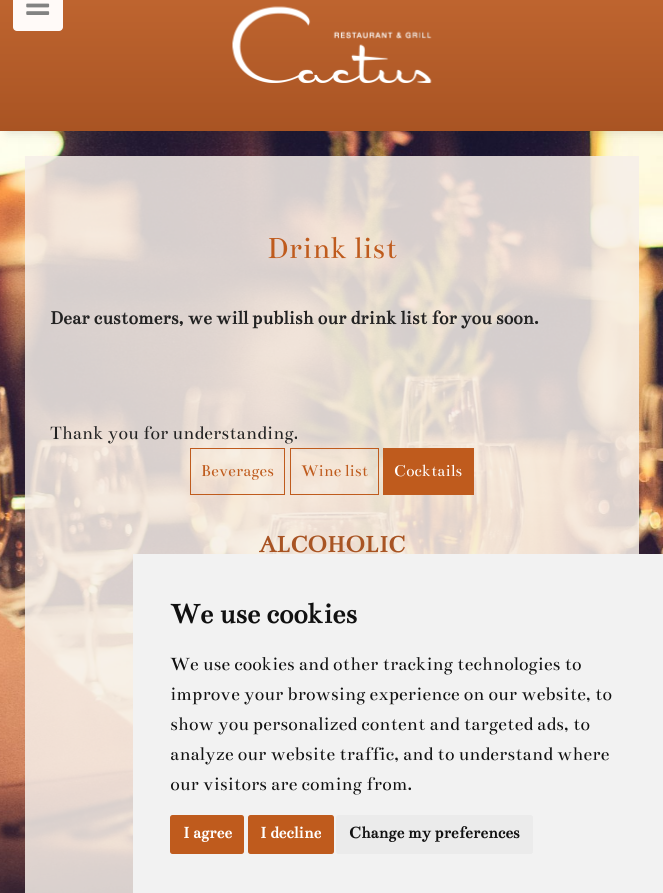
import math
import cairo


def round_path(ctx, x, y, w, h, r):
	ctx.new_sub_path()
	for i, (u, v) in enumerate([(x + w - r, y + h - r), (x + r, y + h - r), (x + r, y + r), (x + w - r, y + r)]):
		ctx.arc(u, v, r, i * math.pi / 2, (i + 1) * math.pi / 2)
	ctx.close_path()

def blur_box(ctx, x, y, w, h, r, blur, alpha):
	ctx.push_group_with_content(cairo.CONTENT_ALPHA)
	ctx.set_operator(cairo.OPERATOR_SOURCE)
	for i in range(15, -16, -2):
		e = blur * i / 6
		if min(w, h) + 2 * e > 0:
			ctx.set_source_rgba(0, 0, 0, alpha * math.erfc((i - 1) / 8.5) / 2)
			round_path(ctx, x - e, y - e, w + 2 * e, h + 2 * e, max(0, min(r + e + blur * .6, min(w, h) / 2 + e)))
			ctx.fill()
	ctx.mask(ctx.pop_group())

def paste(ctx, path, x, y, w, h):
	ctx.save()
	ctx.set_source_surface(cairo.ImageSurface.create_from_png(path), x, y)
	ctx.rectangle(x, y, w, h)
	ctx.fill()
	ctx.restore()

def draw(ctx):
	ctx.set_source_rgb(1, 1, 1)
	ctx.paint()
	paste(ctx, 'media/3.png', 0, 131, 663, 762)
	ctx.set_source_rgb(0.2, 0.188, 0.18)
	blur_box(ctx, 8, -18, 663, 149, 0, 6, 0.2)
	gradient = cairo.LinearGradient(332, -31, 332, 131)
	gradient.add_color_stop_rgba(0, 0.765, 0.408, 0.196, 1)
	gradient.add_color_stop_rgba(1, 0.663, 0.329, 0.137, 1)
	ctx.set_source(gradient)
	ctx.rectangle(0, 0, 663, 131)
	ctx.fill()
	ctx.set_source_rgb(1, 0.98, 0.969)
	round_path(ctx, 13, -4, 50, 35, 4)
	ctx.fill()
	paste(ctx, 'media/1.png', 26, 3, 24, 12)
	paste(ctx, 'media/2.png', 232, 6, 200, 77)
	ctx.set_source_rgba(0.965, 0.937, 0.914, 0.85)
	ctx.rectangle(25, 156, 614, 737)
	ctx.fill()
	ctx.select_font_face('Bentham')
	ctx.set_font_size(32.5)
	ctx.set_source_rgb(0.749, 0.357, 0.114)
	ctx.move_to(267, 258)
	ctx.show_text('Drink list')
	ctx.select_font_face('Bentham', cairo.FONT_SLANT_NORMAL, cairo.FONT_WEIGHT_BOLD)
	ctx.set_font_size(20)
	ctx.set_source_rgb(0.133, 0.133, 0.133)
	ctx.move_to(50, 324)
	ctx.show_text('Dear customers, we will publish our drink list for you soon.')
	ctx.select_font_face('Bentham')
	ctx.move_to(50, 439)
	ctx.show_text('Thank you for understanding.')
	ctx.rectangle(190.5, 448.5, 94, 46)
	ctx.set_source_rgb(0.749, 0.357, 0.114)
	ctx.set_line_width(1)
	ctx.stroke()
	ctx.set_font_size(17.5)
	ctx.move_to(201, 476)
	ctx.show_text('Beverages')
	ctx.rectangle(290.5, 448.5, 88, 46)
	ctx.stroke()
	ctx.move_to(301, 476)
	ctx.show_text('Wine list')
	ctx.rectangle(383, 448, 91, 47)
	ctx.fill()
	ctx.set_source_rgb(1, 1, 1)
	ctx.move_to(394, 476)
	ctx.show_text('Cocktails')
	ctx.select_font_face('Bentham', cairo.FONT_SLANT_NORMAL, cairo.FONT_WEIGHT_BOLD)
	ctx.set_font_size(25)
	ctx.set_source_rgb(0.659, 0.329, 0.137)
	ctx.move_to(259, 552)
	ctx.show_text('ALCOHOLIC')
	ctx.set_source_rgb(0.949, 0.949, 0.949)
	ctx.rectangle(133, 554, 530, 339)
	ctx.fill()
	ctx.set_font_size(30)
	ctx.set_source_rgb(0.067, 0.067, 0.067)
	ctx.move_to(170, 623)
	ctx.show_text('We use cookies')
	ctx.select_font_face('Bentham')
	ctx.set_font_size(20)
	for x, y, s in [
		(170, 670, 'We use cookies and other tracking technologies to'),
		(170, 700, 'improve your browsing experience on our website, to'),
		(170, 730, 'show you personalized content and targeted ads, to'),
		(170, 760, 'analyze our website traffic, and to understand where'),
		(170, 790, 'our visitors are coming from.'),
	]:
		ctx.move_to(x, y)
		ctx.show_text(s)
	ctx.set_source_rgb(0.749, 0.357, 0.114)
	round_path(ctx, 170, 815, 74, 39, 2.5)
	ctx.fill()
	ctx.select_font_face('Bentham', cairo.FONT_SLANT_NORMAL, cairo.FONT_WEIGHT_BOLD)
	ctx.set_font_size(17.5)
	ctx.set_source_rgb(1, 1, 1)
	ctx.move_to(183, 838)
	ctx.show_text('I agree')
	ctx.set_source_rgb(0.749, 0.357, 0.114)
	round_path(ctx, 248, 815, 86, 39, 2.5)
	ctx.fill()
	ctx.set_source_rgb(1, 1, 1)
	ctx.move_to(260, 838)
	ctx.show_text('I decline')
	ctx.set_source_rgb(0.918, 0.918, 0.918)
	round_path(ctx, 336, 815, 197, 39, 2.5)
	ctx.fill()
	ctx.set_source_rgb(0.067, 0.067, 0.067)
	ctx.move_to(349, 838)
	ctx.show_text('Change my preferences')


surface = cairo.ImageSurface(cairo.FORMAT_RGB24, 663, 893)
ctx = cairo.Context(surface)
options = cairo.FontOptions()
options.set_hint_metrics(cairo.HINT_METRICS_OFF)
options.set_hint_style(cairo.HINT_STYLE_NONE)
ctx.set_font_options(options)
ctx.set_miter_limit(4)
draw(ctx)
surface.write_to_png('image.png')
